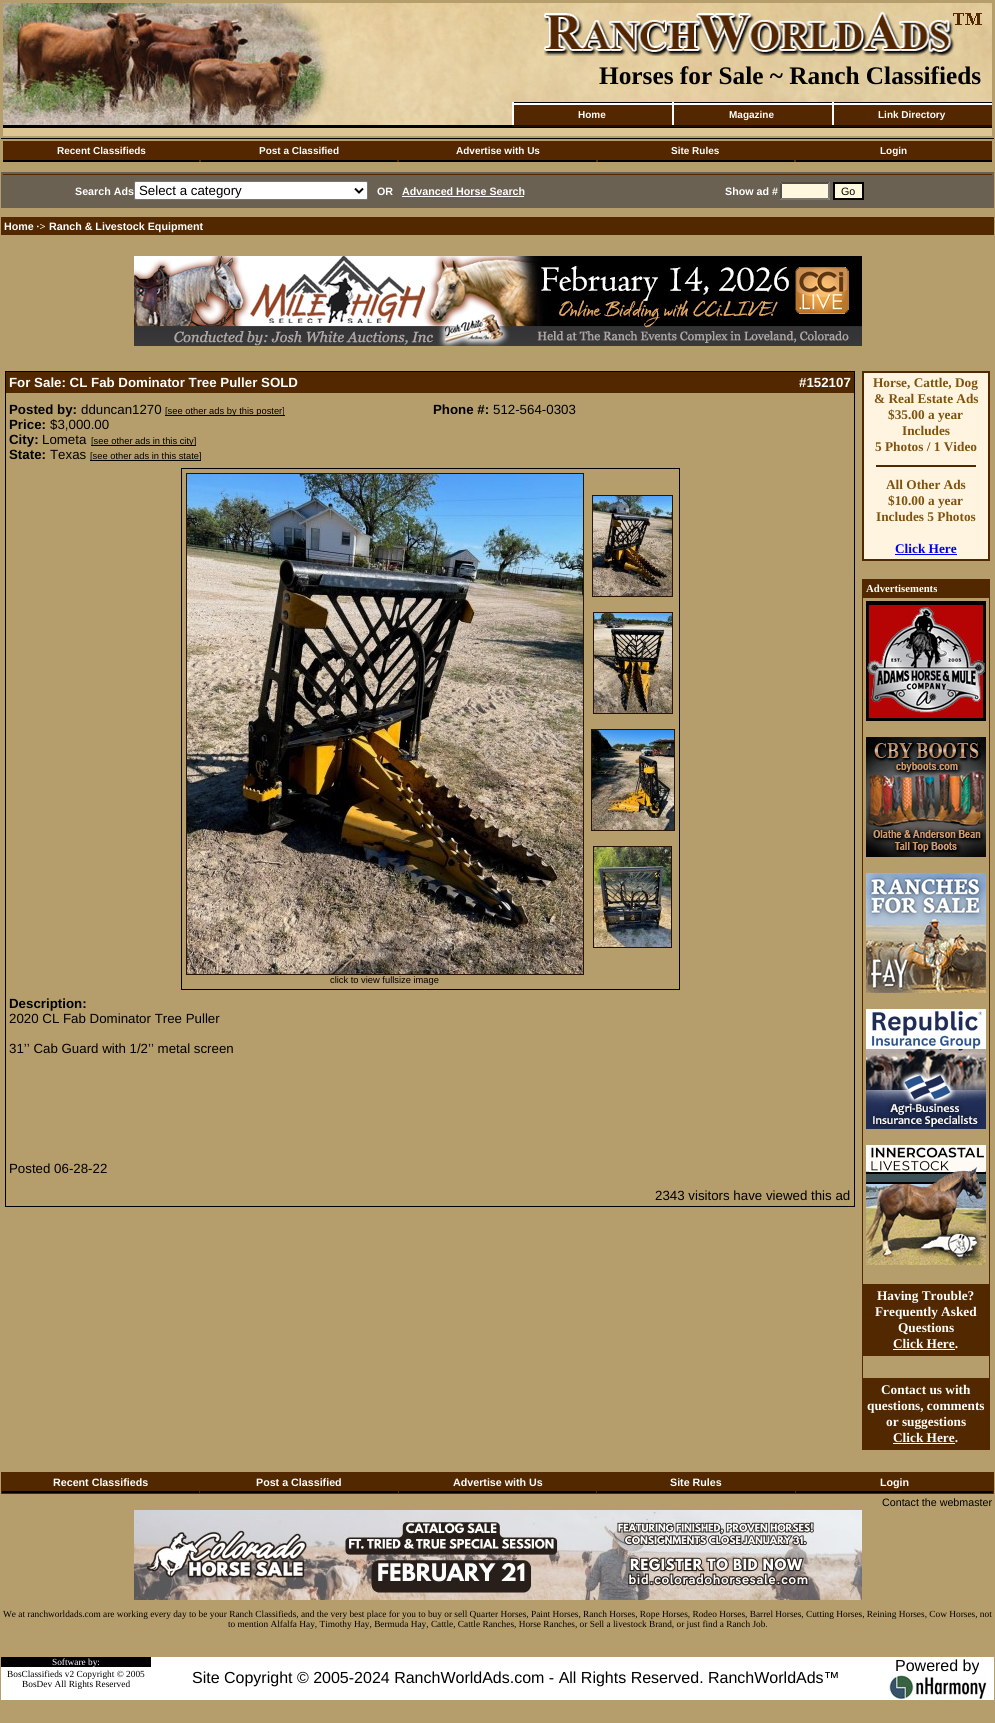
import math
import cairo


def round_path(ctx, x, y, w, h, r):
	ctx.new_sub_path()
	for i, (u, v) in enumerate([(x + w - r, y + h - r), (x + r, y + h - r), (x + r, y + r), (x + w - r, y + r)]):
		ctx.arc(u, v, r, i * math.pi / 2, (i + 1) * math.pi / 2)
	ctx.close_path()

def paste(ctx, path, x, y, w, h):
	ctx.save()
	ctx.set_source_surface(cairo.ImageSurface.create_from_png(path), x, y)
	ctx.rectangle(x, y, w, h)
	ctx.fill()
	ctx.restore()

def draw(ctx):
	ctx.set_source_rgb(0.71, 0.62, 0.42)
	ctx.paint()
	ctx.set_source_rgb(0.867, 0.773, 0.58)
	ctx.rectangle(3, 128, 989, 8)
	ctx.fill()
	paste(ctx, 'media/1.png', 3, 3, 989, 122)
	paste(ctx, 'media/2.png', 544, 12, 438, 44)
	ctx.select_font_face('Liberation Serif', cairo.FONT_SLANT_NORMAL, cairo.FONT_WEIGHT_BOLD)
	ctx.set_font_size(25.3)
	ctx.set_source_rgb(0, 0, 0)
	ctx.move_to(599, 84)
	ctx.show_text('Horses for Sale ~ Ranch Classifieds')
	paste(ctx, 'media/3.png', 512, 102, 160, 25)
	ctx.select_font_face('Liberation Sans', cairo.FONT_SLANT_NORMAL, cairo.FONT_WEIGHT_BOLD)
	ctx.set_font_size(10)
	ctx.set_source_rgb(1, 1, 1)
	ctx.move_to(578, 118)
	ctx.show_text('Home')
	paste(ctx, 'media/3.png', 672, 102, 160, 25)
	ctx.move_to(729, 118)
	ctx.show_text('Magazine')
	paste(ctx, 'media/3.png', 832, 102, 160, 25)
	ctx.move_to(878, 118)
	ctx.show_text('Link Directory')
	ctx.set_source_rgb(0, 0, 0)
	ctx.rectangle(3, 125, 509, 2)
	ctx.rectangle(3, 127, 989, 1)
	ctx.rectangle(1, 138, 993, 1)
	ctx.fill()
	ctx.set_source_rgb(0.329, 0.153, 0)
	ctx.rectangle(3, 141, 989, 21)
	ctx.fill()
	ctx.set_source_rgb(0, 0, 0)
	ctx.rectangle(3, 160, 196, 2)
	ctx.fill()
	ctx.set_source_rgb(1, 1, 1)
	ctx.move_to(57, 154)
	ctx.show_text('Recent Classifieds')
	ctx.set_source_rgb(0, 0, 0)
	ctx.rectangle(201, 160, 196, 2)
	ctx.fill()
	ctx.set_source_rgb(1, 1, 1)
	ctx.move_to(259, 154)
	ctx.show_text('Post a Classified')
	ctx.set_source_rgb(0, 0, 0)
	ctx.rectangle(399, 160, 197, 2)
	ctx.fill()
	ctx.set_source_rgb(1, 1, 1)
	ctx.move_to(456, 154)
	ctx.show_text('Advertise with Us')
	ctx.set_source_rgb(0, 0, 0)
	ctx.rectangle(598, 160, 196, 2)
	ctx.fill()
	ctx.set_source_rgb(1, 1, 1)
	ctx.move_to(671, 154)
	ctx.show_text('Site Rules')
	ctx.set_source_rgb(0, 0, 0)
	ctx.rectangle(796, 160, 196, 2)
	ctx.fill()
	ctx.set_source_rgb(1, 1, 1)
	ctx.move_to(880, 154)
	ctx.show_text('Login')
	ctx.set_source_rgb(0.42, 0.38, 0.322)
	ctx.rectangle(1, 172, 993, 36)
	ctx.fill()
	ctx.set_source_rgb(0.329, 0.153, 0)
	ctx.rectangle(3, 174, 989, 1)
	ctx.fill()
	ctx.set_font_size(10.7)
	ctx.set_source_rgb(1, 1, 1)
	ctx.move_to(75, 195)
	ctx.show_text('Search Ads')
	round_path(ctx, 134.5, 181.5, 233, 18, 1.5)
	ctx.fill_preserve()
	ctx.set_source_rgb(0.463, 0.463, 0.463)
	ctx.set_line_width(1)
	ctx.stroke()
	ctx.new_path()
	ctx.move_to(355, 188.5)
	ctx.line_to(359, 192.5)
	ctx.line_to(363, 188.5)
	ctx.set_source_rgb(0, 0, 0)
	ctx.set_line_width(2)
	ctx.stroke()
	ctx.select_font_face('Liberation Sans')
	ctx.set_font_size(13.3)
	ctx.move_to(139, 195)
	ctx.show_text('Select a category')
	ctx.select_font_face('Liberation Sans', cairo.FONT_SLANT_NORMAL, cairo.FONT_WEIGHT_BOLD)
	ctx.set_font_size(10.7)
	ctx.set_source_rgb(1, 1, 1)
	ctx.move_to(377, 195)
	ctx.show_text('OR')
	ctx.move_to(402, 195)
	ctx.show_text('Advanced Horse Search')
	ctx.rectangle(402, 196, 122, 1)
	ctx.fill()
	ctx.move_to(725, 195)
	ctx.show_text('Show ad #')
	ctx.set_source_rgb(1, 0.969, 0.871)
	ctx.rectangle(780, 182, 50, 18)
	ctx.fill()
	ctx.set_source_rgb(0.31, 0.31, 0.31)
	ctx.new_path()
	ctx.move_to(780, 182)
	ctx.line_to(830, 182)
	ctx.line_to(828, 184)
	ctx.line_to(782, 184)
	ctx.close_path()
	ctx.fill()
	ctx.set_source_rgb(0.463, 0.463, 0.463)
	ctx.new_path()
	ctx.move_to(830, 182)
	ctx.line_to(830, 200)
	ctx.line_to(828, 198)
	ctx.line_to(828, 184)
	ctx.close_path()
	ctx.fill()
	ctx.new_path()
	ctx.move_to(830, 200)
	ctx.line_to(780, 200)
	ctx.line_to(782, 198)
	ctx.line_to(828, 198)
	ctx.close_path()
	ctx.fill()
	ctx.set_source_rgb(0.31, 0.31, 0.31)
	ctx.new_path()
	ctx.move_to(780, 200)
	ctx.line_to(780, 182)
	ctx.line_to(782, 184)
	ctx.line_to(782, 198)
	ctx.close_path()
	ctx.fill()
	ctx.set_source_rgb(1, 0.969, 0.871)
	ctx.rectangle(834, 183, 29, 16)
	ctx.fill_preserve()
	ctx.set_source_rgb(0, 0, 0)
	ctx.stroke()
	ctx.select_font_face('Liberation Sans')
	ctx.move_to(841, 195)
	ctx.show_text('Go')
	ctx.set_source_rgb(0.322, 0.157, 0)
	ctx.rectangle(1, 217, 993, 18)
	ctx.fill()
	ctx.select_font_face('Liberation Sans', cairo.FONT_SLANT_NORMAL, cairo.FONT_WEIGHT_BOLD)
	ctx.set_source_rgb(1, 1, 1)
	ctx.move_to(4, 230)
	ctx.show_text('Home')
	ctx.select_font_face('Liberation Serif', cairo.FONT_SLANT_NORMAL, cairo.FONT_WEIGHT_BOLD)
	ctx.move_to(36, 230)
	ctx.show_text('·>')
	ctx.select_font_face('Liberation Sans', cairo.FONT_SLANT_NORMAL, cairo.FONT_WEIGHT_BOLD)
	ctx.move_to(49, 230)
	ctx.show_text('Ranch & Livestock Equipment')
	paste(ctx, 'media/4.png', 134, 256, 728, 90)
	ctx.rectangle(5.5, 371.5, 849, 835)
	ctx.set_source_rgb(0, 0, 0)
	ctx.set_line_width(1)
	ctx.stroke()
	ctx.set_source_rgb(0.322, 0.157, 0)
	ctx.rectangle(6, 372, 848, 21)
	ctx.fill()
	ctx.set_font_size(13.3)
	ctx.set_source_rgb(1, 1, 1)
	ctx.move_to(9, 387)
	ctx.show_text('For Sale: CL Fab Dominator Tree Puller SOLD')
	ctx.move_to(799, 387)
	ctx.show_text('#152107')
	ctx.set_source_rgb(0, 0, 0)
	ctx.move_to(9, 414)
	ctx.show_text('Posted by:')
	ctx.select_font_face('Liberation Sans')
	ctx.move_to(81, 414)
	ctx.show_text('dduncan1270')
	ctx.rectangle(165, 415, 120, 1)
	ctx.fill()
	ctx.set_font_size(9.33)
	ctx.move_to(165, 414)
	ctx.show_text('[see other ads by this poster]')
	ctx.select_font_face('Liberation Sans', cairo.FONT_SLANT_NORMAL, cairo.FONT_WEIGHT_BOLD)
	ctx.set_font_size(13.3)
	ctx.move_to(9, 429)
	ctx.show_text('Price:')
	ctx.select_font_face('Liberation Sans')
	ctx.move_to(50, 429)
	ctx.show_text('$3,000.00')
	ctx.select_font_face('Liberation Sans', cairo.FONT_SLANT_NORMAL, cairo.FONT_WEIGHT_BOLD)
	ctx.move_to(9, 444)
	ctx.show_text('City:')
	ctx.select_font_face('Liberation Sans')
	ctx.move_to(42, 444)
	ctx.show_text('Lometa')
	ctx.rectangle(91, 445, 105, 1)
	ctx.fill()
	ctx.set_font_size(9.33)
	ctx.move_to(91, 444)
	ctx.show_text('[see other ads in this city]')
	ctx.select_font_face('Liberation Sans', cairo.FONT_SLANT_NORMAL, cairo.FONT_WEIGHT_BOLD)
	ctx.set_font_size(13.3)
	ctx.move_to(9, 459)
	ctx.show_text('State:')
	ctx.select_font_face('Liberation Sans')
	ctx.move_to(50, 459)
	ctx.show_text('Texas')
	ctx.rectangle(90, 460, 111, 1)
	ctx.fill()
	ctx.set_font_size(9.33)
	ctx.move_to(90, 459)
	ctx.show_text('[see other ads in this state]')
	ctx.select_font_face('Liberation Sans', cairo.FONT_SLANT_NORMAL, cairo.FONT_WEIGHT_BOLD)
	ctx.set_font_size(13.3)
	ctx.move_to(433, 414)
	ctx.show_text('Phone #:')
	ctx.select_font_face('Liberation Sans')
	ctx.move_to(493, 414)
	ctx.show_text('512-564-0303')
	ctx.rectangle(181.5, 468.5, 498, 521)
	ctx.stroke()
	ctx.rectangle(592.5, 495.5, 80, 101)
	ctx.set_source_rgb(0.161, 0.078, 0)
	ctx.stroke()
	paste(ctx, 'media/5.png', 593, 496, 79, 100)
	ctx.rectangle(593.5, 612.5, 79, 101)
	ctx.stroke()
	paste(ctx, 'media/6.png', 594, 613, 78, 100)
	ctx.rectangle(591.5, 729.5, 83, 101)
	ctx.stroke()
	paste(ctx, 'media/7.png', 592, 730, 82, 100)
	ctx.rectangle(593.5, 846.5, 78, 101)
	ctx.stroke()
	paste(ctx, 'media/8.png', 594, 847, 77, 100)
	ctx.rectangle(186.5, 473.5, 397, 501)
	ctx.stroke()
	paste(ctx, 'media/9.png', 187, 474, 396, 500)
	ctx.set_font_size(9.33)
	ctx.set_source_rgb(0, 0, 0)
	ctx.move_to(330, 983)
	ctx.show_text('click to view fullsize image')
	ctx.select_font_face('Liberation Sans', cairo.FONT_SLANT_NORMAL, cairo.FONT_WEIGHT_BOLD)
	ctx.set_font_size(13.3)
	ctx.move_to(9, 1008)
	ctx.show_text('Description:')
	ctx.select_font_face('Liberation Sans')
	for x, y, s in [
		(9, 1023, '2020 CL Fab Dominator Tree Puller'),
		(9, 1053, '31’’ Cab Guard with 1/2’’ metal screen'),
		(9, 1173, 'Posted 06-28-22'),
		(655, 1200, '2343 visitors have viewed this ad'),
	]:
		ctx.move_to(x, y)
		ctx.show_text(s)
	ctx.set_source_rgb(0.322, 0.157, 0)
	ctx.rectangle(862, 371, 128, 190)
	ctx.fill()
	ctx.set_source_rgb(1, 0.957, 0.878)
	ctx.rectangle(864, 373, 124, 186)
	ctx.fill()
	ctx.select_font_face('Liberation Serif', cairo.FONT_SLANT_NORMAL, cairo.FONT_WEIGHT_BOLD)
	ctx.set_source_rgb(0.498, 0.325, 0.059)
	for x, y, s in [
		(873, 387, 'Horse, Cattle, Dog'),
		(874, 403, '& Real Estate Ads'),
		(888, 419, '$35.00 a year'),
		(902, 435, 'Includes'),
		(875, 451, '5 Photos / 1 Video'),
	]:
		ctx.move_to(x, y)
		ctx.show_text(s)
	ctx.set_source_rgb(0.322, 0.157, 0)
	ctx.rectangle(876, 465, 100, 2)
	ctx.fill()
	ctx.set_source_rgb(0.498, 0.325, 0.059)
	for x, y, s in [
		(886, 489, 'All Other Ads'),
		(888, 505, '$10.00 a year'),
		(876, 521, 'Includes 5 Photos'),
	]:
		ctx.move_to(x, y)
		ctx.show_text(s)
	ctx.set_source_rgb(0, 0, 0.933)
	ctx.move_to(895, 553)
	ctx.show_text('Click Here')
	ctx.rectangle(895, 554, 62, 1)
	ctx.fill()
	ctx.set_source_rgb(0.322, 0.157, 0)
	ctx.rectangle(862, 579, 128, 871)
	ctx.fill()
	ctx.set_font_size(10.7)
	ctx.set_source_rgb(1, 1, 1)
	ctx.move_to(866, 592)
	ctx.show_text('Advertisements')
	ctx.set_source_rgb(0.71, 0.62, 0.42)
	ctx.rectangle(863, 598, 126, 686)
	ctx.fill()
	paste(ctx, 'media/10.png', 866, 601, 120, 120)
	paste(ctx, 'media/11.png', 866, 737, 120, 120)
	paste(ctx, 'media/12.png', 866, 873, 120, 120)
	paste(ctx, 'media/13.png', 866, 1009, 120, 120)
	paste(ctx, 'media/14.png', 866, 1145, 120, 120)
	ctx.set_font_size(13.3)
	ctx.set_source_rgb(1, 1, 1)
	for x, y, s in [
		(877, 1300, 'Having Trouble?'),
		(875, 1316, 'Frequently Asked'),
		(898, 1332, 'Questions'),
		(893, 1348, 'Click Here.'),
	]:
		ctx.move_to(x, y)
		ctx.show_text(s)
	ctx.rectangle(893, 1349, 62, 1)
	ctx.fill()
	ctx.set_source_rgb(0.71, 0.62, 0.42)
	ctx.rectangle(863, 1356, 126, 22)
	ctx.fill()
	ctx.set_source_rgb(1, 1, 1)
	for x, y, s in [
		(881, 1394, 'Contact us with'),
		(867, 1410, 'questions, comments'),
		(886, 1426, 'or suggestions'),
		(893, 1442, 'Click Here.'),
	]:
		ctx.move_to(x, y)
		ctx.show_text(s)
	ctx.rectangle(893, 1443, 62, 1)
	ctx.fill()
	ctx.set_source_rgb(0.322, 0.157, 0)
	ctx.rectangle(1, 1472, 993, 22)
	ctx.fill()
	ctx.set_source_rgb(0, 0, 0)
	ctx.rectangle(2, 1491, 197, 2)
	ctx.fill()
	ctx.select_font_face('Liberation Sans', cairo.FONT_SLANT_NORMAL, cairo.FONT_WEIGHT_BOLD)
	ctx.set_font_size(10.7)
	ctx.set_source_rgb(1, 1, 1)
	ctx.move_to(53, 1486)
	ctx.show_text('Recent Classifieds')
	ctx.set_source_rgb(0, 0, 0)
	ctx.rectangle(200, 1491, 198, 2)
	ctx.fill()
	ctx.set_source_rgb(1, 1, 1)
	ctx.move_to(256, 1486)
	ctx.show_text('Post a Classified')
	ctx.set_source_rgb(0, 0, 0)
	ctx.rectangle(399, 1491, 197, 2)
	ctx.fill()
	ctx.set_source_rgb(1, 1, 1)
	ctx.move_to(453, 1486)
	ctx.show_text('Advertise with Us')
	ctx.set_source_rgb(0, 0, 0)
	ctx.rectangle(597, 1491, 198, 2)
	ctx.fill()
	ctx.set_source_rgb(1, 1, 1)
	ctx.move_to(670, 1486)
	ctx.show_text('Site Rules')
	ctx.set_source_rgb(0, 0, 0)
	ctx.rectangle(796, 1491, 197, 2)
	ctx.fill()
	ctx.set_source_rgb(1, 1, 1)
	ctx.move_to(880, 1486)
	ctx.show_text('Login')
	ctx.select_font_face('Liberation Sans')
	ctx.set_source_rgb(0, 0, 0)
	ctx.move_to(882, 1506)
	ctx.show_text('Contact the webmaster')
	paste(ctx, 'media/15.png', 134, 1510, 728, 90)
	ctx.select_font_face('Liberation Serif')
	ctx.set_font_size(9.33)
	ctx.move_to(3, 1617)
	ctx.show_text('We at ranchworldads.com are working every day to be your Ranch Classifieds, and the very best place for you to buy or sell Quarter Horses, Paint Horses, Ranch Horses, Rope Horses, Rodeo Horses, Barrel Horses, Cutting Horses, Reining Horses, Cow Horses, not')
	ctx.move_to(228, 1627)
	ctx.show_text('to mention Alfalfa Hay, Timothy Hay, Bermuda Hay, Cattle, Cattle Ranches, Horse Ranches, or Sell a livestock Brand, or just find a Ranch Job.')
	ctx.set_source_rgb(1, 1, 1)
	ctx.rectangle(1, 1657, 993, 43)
	ctx.fill()
	ctx.set_source_rgb(0, 0, 0)
	ctx.rectangle(1, 1657, 150, 10)
	ctx.fill()
	ctx.set_source_rgb(1, 1, 1)
	ctx.move_to(52, 1665)
	ctx.show_text('Software by:')
	ctx.select_font_face('Liberation Sans')
	ctx.set_font_size(16)
	ctx.set_source_rgb(0, 0, 0)
	ctx.move_to(895, 1671)
	ctx.show_text('Powered by')
	paste(ctx, 'media/16.png', 888, 1675, 99, 24)
	ctx.move_to(192, 1683)
	ctx.show_text('Site Copyright © 2005-2024 RanchWorldAds.com - All Rights Reserved. RanchWorldAds™')
	ctx.select_font_face('Liberation Serif')
	ctx.set_font_size(9.33)
	ctx.move_to(7, 1677)
	ctx.show_text('BosClassifieds v2 Copyright © 2005')
	ctx.move_to(22, 1687)
	ctx.show_text('BosDev All Rights Reserved')


surface = cairo.ImageSurface(cairo.FORMAT_RGB24, 995, 1723)
ctx = cairo.Context(surface)
options = cairo.FontOptions()
options.set_hint_metrics(cairo.HINT_METRICS_OFF)
options.set_hint_style(cairo.HINT_STYLE_NONE)
ctx.set_font_options(options)
ctx.set_miter_limit(4)
draw(ctx)
surface.write_to_png('image.png')
